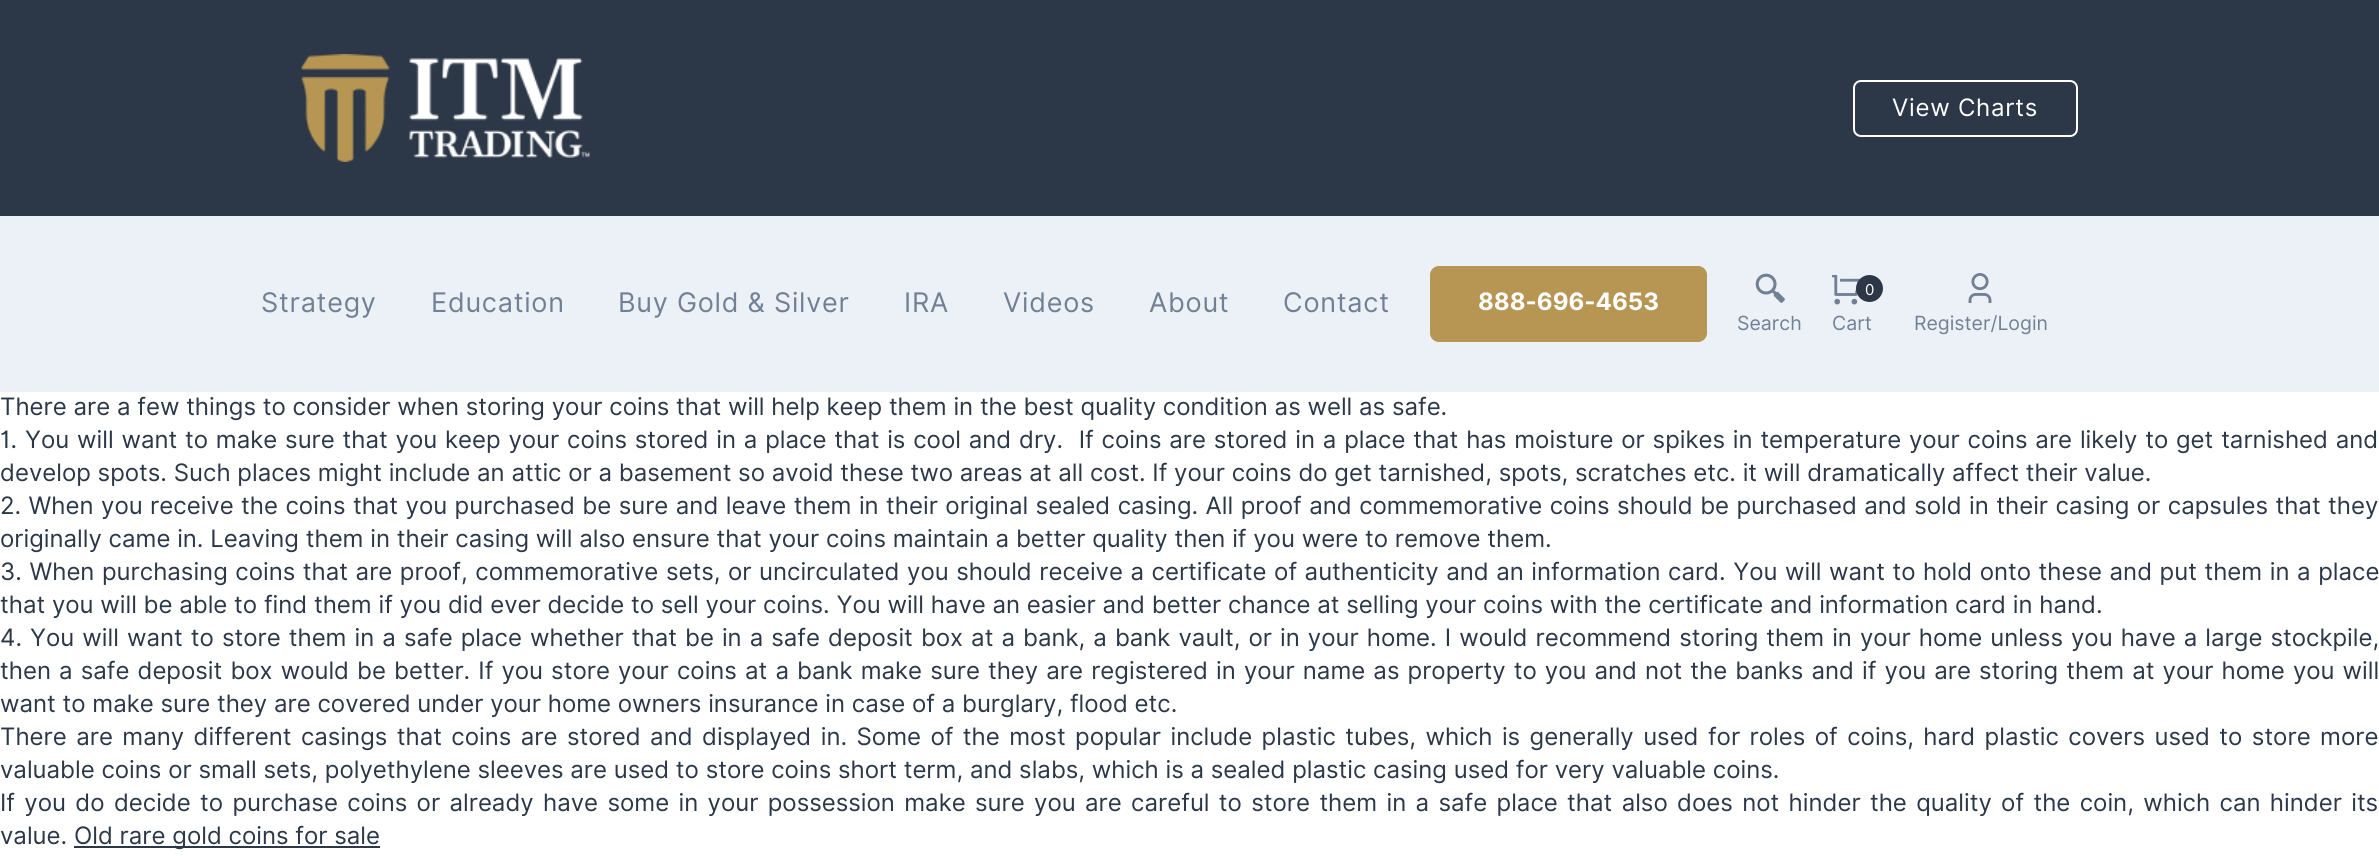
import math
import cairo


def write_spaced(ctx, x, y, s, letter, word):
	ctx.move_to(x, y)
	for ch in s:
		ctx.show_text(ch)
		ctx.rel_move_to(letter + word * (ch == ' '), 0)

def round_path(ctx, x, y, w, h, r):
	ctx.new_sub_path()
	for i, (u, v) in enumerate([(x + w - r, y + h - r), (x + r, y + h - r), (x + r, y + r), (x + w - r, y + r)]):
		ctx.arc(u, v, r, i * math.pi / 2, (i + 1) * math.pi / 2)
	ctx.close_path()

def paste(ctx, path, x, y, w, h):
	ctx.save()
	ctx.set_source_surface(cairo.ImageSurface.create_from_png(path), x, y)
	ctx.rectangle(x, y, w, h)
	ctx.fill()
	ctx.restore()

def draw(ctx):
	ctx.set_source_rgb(1, 1, 1)
	ctx.paint()
	ctx.set_source_rgb(0.173, 0.216, 0.282)
	ctx.rectangle(0, 0, 2379, 216)
	ctx.fill()
	paste(ctx, 'media/1.png', 301, 54, 289, 108)
	round_path(ctx, 1854, 81, 223, 55, 7)
	ctx.set_source_rgb(1, 1, 1)
	ctx.stroke()
	ctx.select_font_face('Inter')
	ctx.set_font_size(24)
	write_spaced(ctx, 1892, 116, 'View Charts', 0.75, 0)
	ctx.set_source_rgb(0.925, 0.945, 0.965)
	ctx.rectangle(0, 216, 2379, 176)
	ctx.fill()
	ctx.set_font_size(27)
	ctx.set_source_rgb(0.443, 0.502, 0.584)
	for x, y, s in [
		(261, 312, 'Strategy'),
		(431, 312, 'Education'),
		(618, 312, 'Buy Gold & Silver'),
		(904, 312, 'IRA'),
		(1003, 312, 'Videos'),
		(1149, 312, 'About'),
		(1283, 312, 'Contact'),
	]:
		write_spaced(ctx, x, y, s, 0.75, 0)
	ctx.set_source_rgb(0.718, 0.588, 0.329)
	round_path(ctx, 1430, 266, 277, 76, 9)
	ctx.fill()
	ctx.select_font_face('Inter', cairo.FONT_SLANT_NORMAL, cairo.FONT_WEIGHT_BOLD)
	ctx.set_font_size(24)
	ctx.set_source_rgb(1, 1, 1)
	ctx.move_to(1478, 310)
	ctx.show_text('888-696-4653')
	paste(ctx, 'media/2.png', 1832, 275, 29, 30)
	ctx.set_source_rgb(0.173, 0.216, 0.282)
	ctx.arc(1869.5, 288.5, 13.5, 0, 2 * math.pi)
	ctx.fill()
	ctx.select_font_face('Inter')
	ctx.set_font_size(15)
	ctx.set_source_rgb(1, 1, 1)
	ctx.move_to(1865, 295)
	ctx.show_text('0')
	ctx.set_font_size(19.5)
	ctx.set_source_rgb(0.443, 0.502, 0.584)
	ctx.move_to(1832, 330)
	ctx.show_text('Cart')
	paste(ctx, 'media/3.png', 1755, 273, 30, 30)
	ctx.move_to(1737, 330)
	ctx.show_text('Search')
	paste(ctx, 'media/4.png', 1968, 273, 24, 30)
	ctx.move_to(1914, 330)
	ctx.show_text('Register/Login')
	ctx.set_font_size(24)
	ctx.set_source_rgb(0.173, 0.216, 0.282)
	ctx.move_to(0, 415)
	ctx.show_text('There are a few things to consider when storing your coins that will help keep them in the best quality condition as well as safe.')
	write_spaced(ctx, 0, 448, '1. You will want to make sure that you keep your coins stored in a place that is cool and dry.  If coins are stored in a place that has moisture or spikes in temperature your coins are likely to get tarnished and', 0, 1.05)
	ctx.move_to(0, 481)
	ctx.show_text('develop spots. Such places might include an attic or a basement so avoid these two areas at all cost. If your coins do get tarnished, spots, scratches etc. it will dramatically affect their value.')
	write_spaced(ctx, 0, 514, '2. When you receive the coins that you purchased be sure and leave them in their original sealed casing. All proof and commemorative coins should be purchased and sold in their casing or capsules that they', 0, 0.7)
	ctx.move_to(0, 547)
	ctx.show_text('originally came in. Leaving them in their casing will also ensure that your coins maintain a better quality then if you were to remove them.')
	write_spaced(ctx, 0, 580, '3. When purchasing coins that are proof, commemorative sets, or uncirculated you should receive a certificate of authenticity and an information card. You will want to hold onto these and put them in a place', 0, 0.8)
	ctx.move_to(0, 613)
	ctx.show_text('that you will be able to find them if you did ever decide to sell your coins. You will have an easier and better chance at selling your coins with the certificate and information card in hand.')
	write_spaced(ctx, 0, 646, '4. You will want to store them in a safe place whether that be in a safe deposit box at a bank, a bank vault, or in your home. I would recommend storing them in your home unless you have a large stockpile,', 0, 1.3)
	write_spaced(ctx, 0, 679, 'then a safe deposit box would be better. If you store your coins at a bank make sure they are registered in your name as property to you and not the banks and if you are storing them at your home you will', 0, 1.35)
	ctx.move_to(0, 712)
	ctx.show_text('want to make sure they are covered under your home owners insurance in case of a burglary, flood etc.')
	write_spaced(ctx, 0, 745, 'There are many different casings that coins are stored and displayed in. Some of the most popular include plastic tubes, which is generally used for roles of coins, hard plastic covers used to store more', 0, 2.7)
	ctx.move_to(0, 778)
	ctx.show_text('valuable coins or small sets, polyethylene sleeves are used to store coins short term, and slabs, which is a sealed plastic casing used for very valuable coins.')
	write_spaced(ctx, 0, 811, 'If you do decide to purchase coins or already have some in your possession make sure you are careful to store them in a safe place that also does not hinder the quality of the coin, which can hinder its', 0, 2.6)
	ctx.move_to(0, 844)
	ctx.show_text('value.')
	ctx.rectangle(74, 846, 306, 2)
	ctx.fill()
	ctx.move_to(74, 844)
	ctx.show_text('Old rare gold coins for sale')


surface = cairo.ImageSurface(cairo.FORMAT_RGB24, 2379, 856)
ctx = cairo.Context(surface)
options = cairo.FontOptions()
options.set_hint_metrics(cairo.HINT_METRICS_OFF)
options.set_hint_style(cairo.HINT_STYLE_NONE)
ctx.set_font_options(options)
ctx.set_miter_limit(4)
draw(ctx)
surface.write_to_png('image.png')
